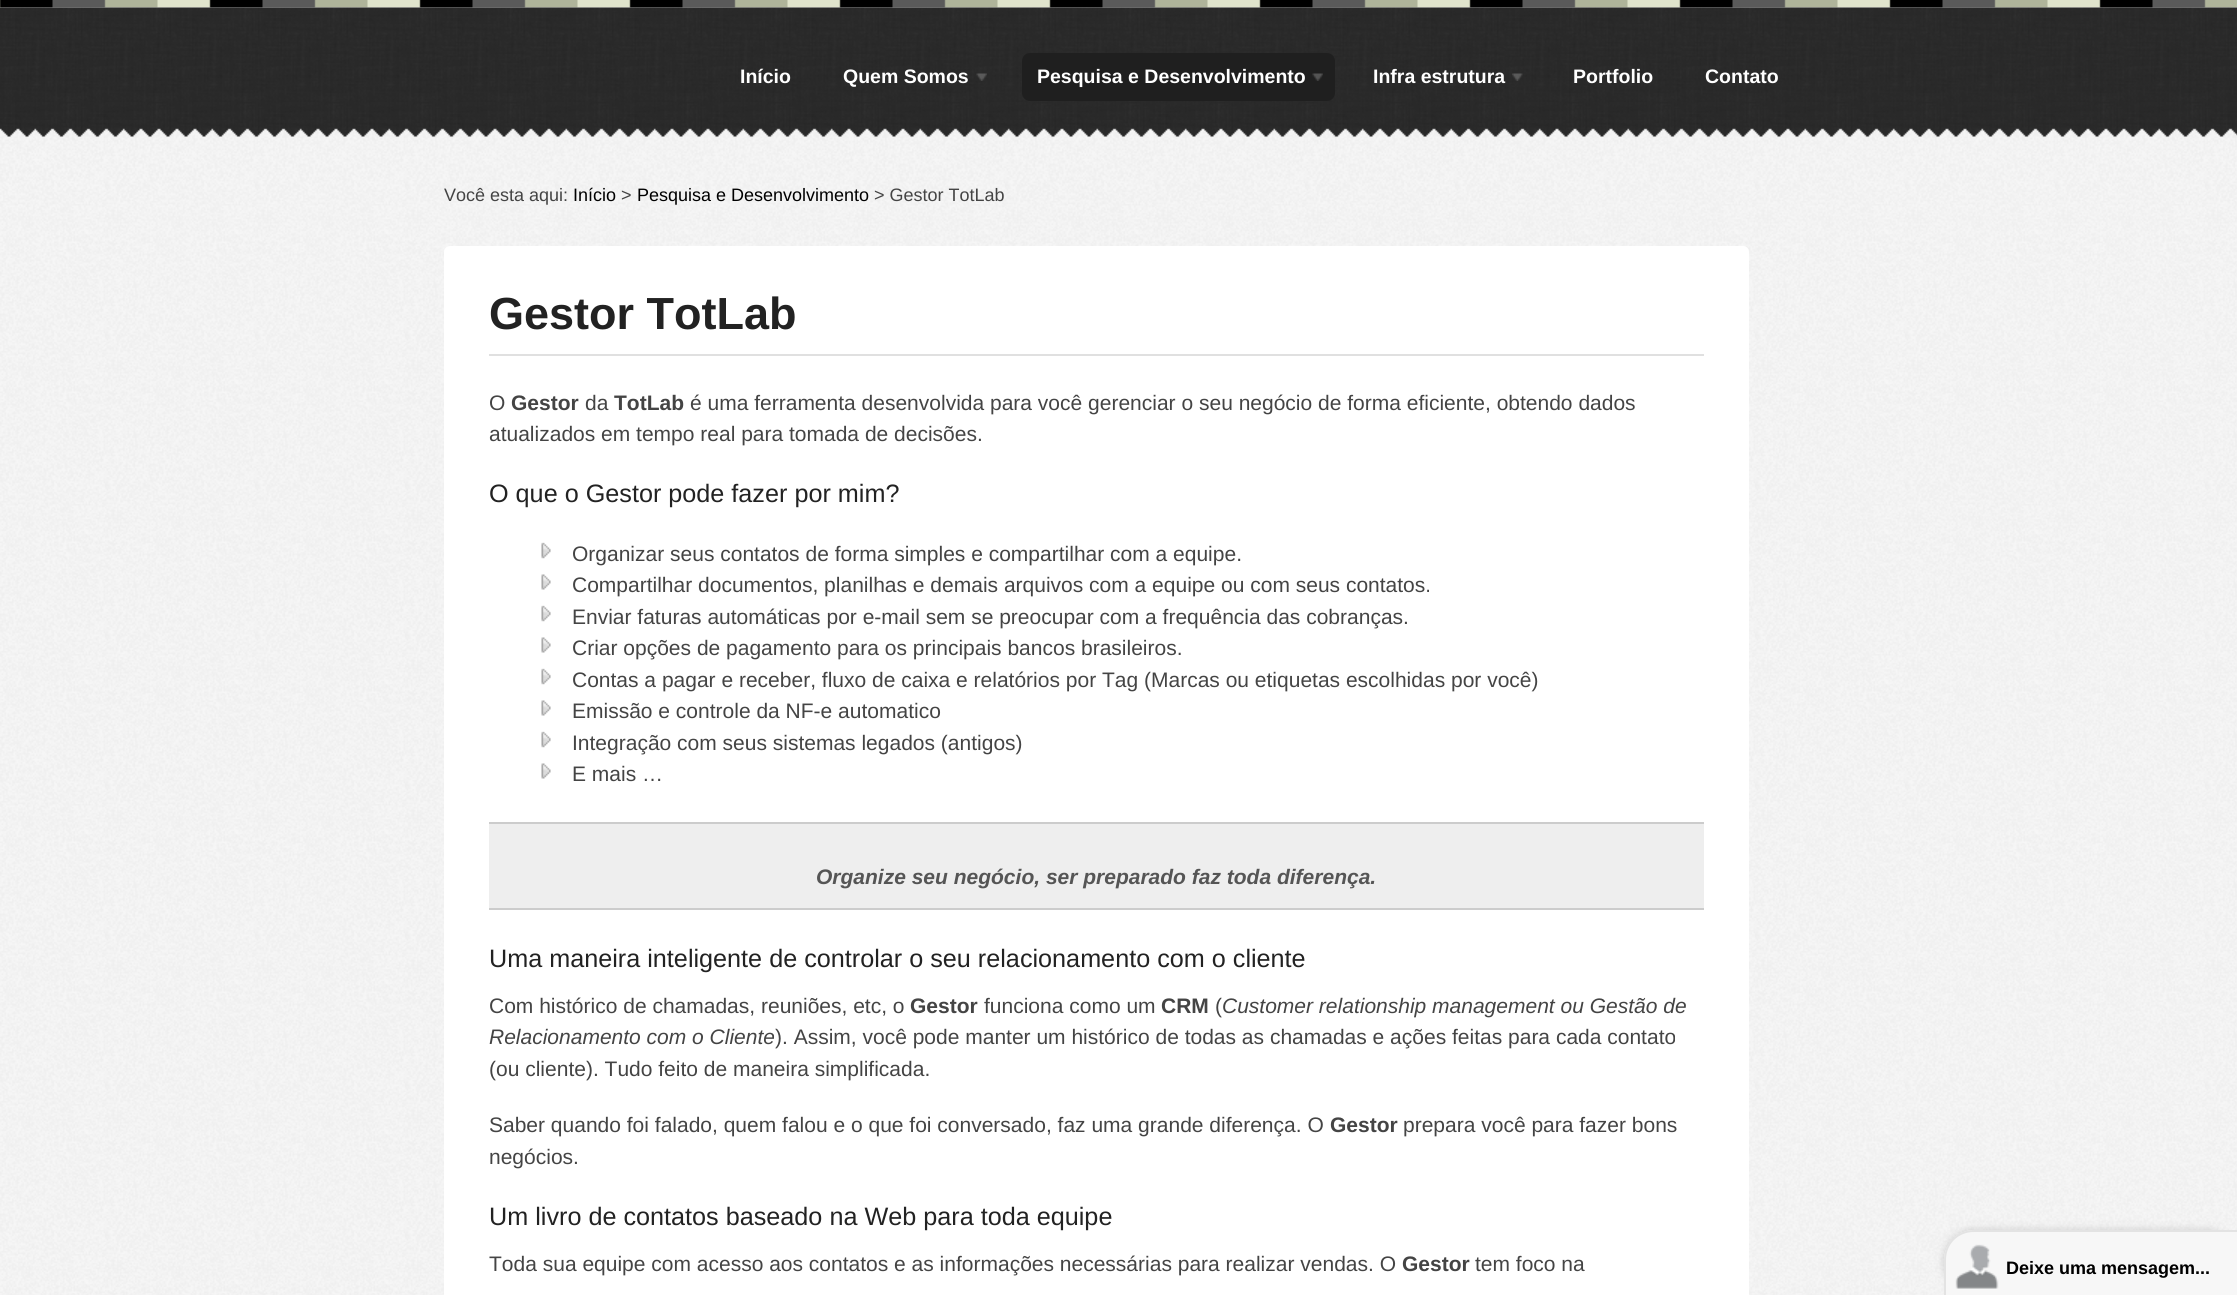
import math
import cairo


def round_path(ctx, x, y, w, h, r):
	ctx.new_sub_path()
	for i, (u, v) in enumerate([(x + w - r, y + h - r), (x + r, y + h - r), (x + r, y + r), (x + w - r, y + r)]):
		ctx.arc(u, v, r, i * math.pi / 2, (i + 1) * math.pi / 2)
	ctx.close_path()

def blur_box(ctx, x, y, w, h, r, blur, alpha):
	ctx.push_group_with_content(cairo.CONTENT_ALPHA)
	ctx.set_operator(cairo.OPERATOR_SOURCE)
	for i in range(15, -16, -2):
		e = blur * i / 6
		if min(w, h) + 2 * e > 0:
			ctx.set_source_rgba(0, 0, 0, alpha * math.erfc((i - 1) / 8.5) / 2)
			round_path(ctx, x - e, y - e, w + 2 * e, h + 2 * e, max(0, min(r + e + blur * .6, min(w, h) / 2 + e)))
			ctx.fill()
	ctx.mask(ctx.pop_group())

def paste(ctx, path, x, y, w, h):
	ctx.save()
	ctx.set_source_surface(cairo.ImageSurface.create_from_png(path), x, y)
	ctx.rectangle(x, y, w, h)
	ctx.fill()
	ctx.restore()

def draw(ctx):
	ctx.set_source_rgb(1, 1, 1)
	ctx.paint()
	paste(ctx, 'media/1.png', 0, 7, 2237, 1288)
	paste(ctx, 'media/2.png', 0, 0, 2237, 8)
	paste(ctx, 'media/3.png', 0, 7, 2237, 130)
	ctx.select_font_face('Liberation Sans', cairo.FONT_SLANT_NORMAL, cairo.FONT_WEIGHT_BOLD)
	ctx.set_font_size(19.5)
	ctx.set_source_rgb(1, 1, 1)
	ctx.move_to(740, 83)
	ctx.show_text('Início')
	ctx.move_to(843, 83)
	ctx.show_text('Quem Somos')
	paste(ctx, 'media/4.png', 976, 73, 11, 8)
	ctx.set_source_rgb(0.122, 0.122, 0.122)
	round_path(ctx, 1022, 53, 313, 48, 8)
	ctx.fill()
	ctx.set_source_rgb(1, 1, 1)
	ctx.move_to(1037, 83)
	ctx.show_text('Pesquisa e Desenvolvimento')
	paste(ctx, 'media/5.png', 1312, 73, 11, 8)
	ctx.move_to(1373, 83)
	ctx.show_text('Infra estrutura')
	paste(ctx, 'media/6.png', 1512, 73, 11, 8)
	ctx.move_to(1573, 83)
	ctx.show_text('Portfolio')
	ctx.move_to(1705, 83)
	ctx.show_text('Contato')
	ctx.select_font_face('Liberation Sans')
	ctx.set_font_size(18)
	ctx.set_source_rgb(0.267, 0.267, 0.267)
	ctx.move_to(444, 201)
	ctx.show_text('Você esta aqui:')
	ctx.set_source_rgb(0, 0, 0)
	ctx.move_to(573, 201)
	ctx.show_text('Início')
	ctx.set_source_rgb(0.267, 0.267, 0.267)
	ctx.move_to(621, 201)
	ctx.show_text('>')
	ctx.set_source_rgb(0, 0, 0)
	ctx.move_to(637, 201)
	ctx.show_text('Pesquisa e Desenvolvimento')
	ctx.set_source_rgb(0.267, 0.267, 0.267)
	ctx.move_to(874, 201)
	ctx.show_text('> Gestor TotLab')
	ctx.set_source_rgb(1, 1, 1)
	round_path(ctx, 444, 246, 1305, 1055, 6)
	ctx.fill()
	ctx.select_font_face('Liberation Sans', cairo.FONT_SLANT_NORMAL, cairo.FONT_WEIGHT_BOLD)
	ctx.set_font_size(45)
	ctx.set_source_rgb(0.133, 0.133, 0.133)
	ctx.move_to(489, 329)
	ctx.show_text('Gestor TotLab')
	ctx.set_source_rgb(0.878, 0.878, 0.878)
	ctx.rectangle(489, 354, 1215, 2)
	ctx.fill()
	ctx.select_font_face('Liberation Sans')
	ctx.set_font_size(21)
	ctx.set_source_rgb(0.267, 0.267, 0.267)
	ctx.move_to(489, 410)
	ctx.show_text('O')
	ctx.select_font_face('Liberation Sans', cairo.FONT_SLANT_NORMAL, cairo.FONT_WEIGHT_BOLD)
	ctx.move_to(511, 410)
	ctx.show_text('Gestor')
	ctx.select_font_face('Liberation Sans')
	ctx.move_to(585, 410)
	ctx.show_text('da')
	ctx.select_font_face('Liberation Sans', cairo.FONT_SLANT_NORMAL, cairo.FONT_WEIGHT_BOLD)
	ctx.move_to(614, 410)
	ctx.show_text('TotLab')
	ctx.select_font_face('Liberation Sans')
	ctx.move_to(690, 410)
	ctx.show_text('é uma ferramenta desenvolvida para você gerenciar o seu negócio de forma eficiente, obtendo dados')
	ctx.move_to(489, 441)
	ctx.show_text('atualizados em tempo real para tomada de decisões.')
	ctx.set_font_size(25.2)
	ctx.set_source_rgb(0.133, 0.133, 0.133)
	ctx.move_to(489, 502)
	ctx.show_text('O que o Gestor pode fazer por mim?')
	paste(ctx, 'media/7.png', 541, 542, 10, 17)
	ctx.set_font_size(21)
	ctx.set_source_rgb(0.267, 0.267, 0.267)
	ctx.move_to(572, 561)
	ctx.show_text('Organizar seus contatos de forma simples e compartilhar com a equipe.')
	paste(ctx, 'media/8.png', 541, 574, 10, 16)
	ctx.move_to(572, 592)
	ctx.show_text('Compartilhar documentos, planilhas e demais arquivos com a equipe ou com seus contatos.')
	paste(ctx, 'media/7.png', 541, 605, 10, 17)
	ctx.move_to(572, 624)
	ctx.show_text('Enviar faturas automáticas por e-mail sem se preocupar com a frequência das cobranças.')
	paste(ctx, 'media/8.png', 541, 637, 10, 16)
	ctx.move_to(572, 655)
	ctx.show_text('Criar opções de pagamento para os principais bancos brasileiros.')
	paste(ctx, 'media/7.png', 541, 668, 10, 17)
	ctx.move_to(572, 687)
	ctx.show_text('Contas a pagar e receber, fluxo de caixa e relatórios por Tag (Marcas ou etiquetas escolhidas por você)')
	paste(ctx, 'media/8.png', 541, 700, 10, 16)
	ctx.move_to(572, 718)
	ctx.show_text('Emissão e controle da NF-e automatico')
	paste(ctx, 'media/7.png', 541, 731, 10, 17)
	ctx.move_to(572, 750)
	ctx.show_text('Integração com seus sistemas legados (antigos)')
	paste(ctx, 'media/8.png', 541, 763, 10, 16)
	ctx.move_to(572, 781)
	ctx.show_text('E mais …')
	ctx.set_source_rgb(0.933, 0.933, 0.933)
	ctx.rectangle(489, 824, 1215, 84)
	ctx.fill()
	ctx.set_source_rgb(0.8, 0.8, 0.8)
	ctx.rectangle(489, 822, 1215, 2)
	ctx.rectangle(489, 908, 1215, 2)
	ctx.fill()
	ctx.select_font_face('Liberation Sans', cairo.FONT_SLANT_ITALIC, cairo.FONT_WEIGHT_BOLD)
	ctx.set_source_rgb(0.333, 0.333, 0.333)
	ctx.move_to(816, 884)
	ctx.show_text('Organize seu negócio, ser preparado faz toda diferença.')
	ctx.select_font_face('Liberation Sans')
	ctx.set_font_size(25.2)
	ctx.set_source_rgb(0.133, 0.133, 0.133)
	ctx.move_to(489, 967)
	ctx.show_text('Uma maneira inteligente de controlar o seu relacionamento com o cliente')
	ctx.set_font_size(21)
	ctx.set_source_rgb(0.267, 0.267, 0.267)
	ctx.move_to(489, 1013)
	ctx.show_text('Com histórico de chamadas, reuniões, etc, o')
	ctx.select_font_face('Liberation Sans', cairo.FONT_SLANT_NORMAL, cairo.FONT_WEIGHT_BOLD)
	ctx.move_to(910, 1013)
	ctx.show_text('Gestor')
	ctx.select_font_face('Liberation Sans')
	ctx.move_to(984, 1013)
	ctx.show_text('funciona como um')
	ctx.select_font_face('Liberation Sans', cairo.FONT_SLANT_NORMAL, cairo.FONT_WEIGHT_BOLD)
	ctx.move_to(1161, 1013)
	ctx.show_text('CRM')
	ctx.select_font_face('Liberation Sans')
	ctx.move_to(1215, 1013)
	ctx.show_text('(')
	ctx.select_font_face('Liberation Sans', cairo.FONT_SLANT_ITALIC)
	ctx.move_to(1222, 1013)
	ctx.show_text('Customer relationship management ou Gestão de')
	ctx.move_to(489, 1044)
	ctx.show_text('Relacionamento com o Cliente')
	ctx.select_font_face('Liberation Sans')
	for x, y, s in [
		(775, 1044, '). Assim, você pode manter um histórico de todas as chamadas e ações feitas para cada contato'),
		(489, 1076, '(ou cliente). Tudo feito de maneira simplificada.'),
		(489, 1132, 'Saber quando foi falado, quem falou e o que foi conversado, faz uma grande diferença. O'),
	]:
		ctx.move_to(x, y)
		ctx.show_text(s)
	ctx.select_font_face('Liberation Sans', cairo.FONT_SLANT_NORMAL, cairo.FONT_WEIGHT_BOLD)
	ctx.move_to(1330, 1132)
	ctx.show_text('Gestor')
	ctx.select_font_face('Liberation Sans')
	ctx.move_to(1403, 1132)
	ctx.show_text('prepara você para fazer bons')
	ctx.move_to(489, 1164)
	ctx.show_text('negócios.')
	ctx.set_font_size(25.2)
	ctx.set_source_rgb(0.133, 0.133, 0.133)
	ctx.move_to(489, 1225)
	ctx.show_text('Um livro de contatos baseado na Web para toda equipe')
	ctx.set_font_size(21)
	ctx.set_source_rgb(0.267, 0.267, 0.267)
	ctx.move_to(489, 1271)
	ctx.show_text('Toda sua equipe com acesso aos contatos e as informações necessárias para realizar vendas. O')
	ctx.select_font_face('Liberation Sans', cairo.FONT_SLANT_NORMAL, cairo.FONT_WEIGHT_BOLD)
	ctx.move_to(1402, 1271)
	ctx.show_text('Gestor')
	ctx.select_font_face('Liberation Sans')
	ctx.move_to(1475, 1271)
	ctx.show_text('tem foco na')
	ctx.set_source_rgb(0.196, 0.196, 0.196)
	blur_box(ctx, 1943, 1229, 294, 66, 30, 4, 0.17)
	ctx.set_source_rgb(0.965, 0.965, 0.965)
	ctx.new_path()
	ctx.move_to(1974, 1230)
	ctx.line_to(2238, 1230)
	ctx.line_to(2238, 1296)
	ctx.line_to(1944, 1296)
	ctx.line_to(1944, 1260)
	ctx.curve_to(1944, 1243.5, 1957.5, 1230, 1974, 1230)
	ctx.close_path()
	ctx.fill()
	ctx.set_source_rgb(0.89, 0.89, 0.89)
	ctx.set_fill_rule(cairo.FILL_RULE_EVEN_ODD)
	ctx.new_path()
	ctx.move_to(1974, 1230)
	ctx.line_to(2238, 1230)
	ctx.line_to(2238, 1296)
	ctx.line_to(1944, 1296)
	ctx.line_to(1944, 1260)
	ctx.curve_to(1944, 1243, 1957, 1230, 1974, 1230)
	ctx.close_path()
	ctx.move_to(1974, 1232)
	ctx.line_to(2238, 1232)
	ctx.line_to(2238, 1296)
	ctx.line_to(1946, 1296)
	ctx.line_to(1946, 1260)
	ctx.curve_to(1946, 1244, 1958, 1232, 1974, 1232)
	ctx.close_path()
	ctx.fill()
	paste(ctx, 'media/9.png', 1955, 1244, 44, 45)
	ctx.select_font_face('Liberation Sans', cairo.FONT_SLANT_NORMAL, cairo.FONT_WEIGHT_BOLD)
	ctx.set_font_size(18)
	ctx.set_source_rgb(0, 0, 0)
	ctx.move_to(2006, 1274)
	ctx.show_text('Deixe uma mensagem...')


surface = cairo.ImageSurface(cairo.FORMAT_RGB24, 2237, 1295)
ctx = cairo.Context(surface)
options = cairo.FontOptions()
options.set_hint_metrics(cairo.HINT_METRICS_OFF)
options.set_hint_style(cairo.HINT_STYLE_NONE)
ctx.set_font_options(options)
ctx.set_miter_limit(4)
draw(ctx)
surface.write_to_png('image.png')
